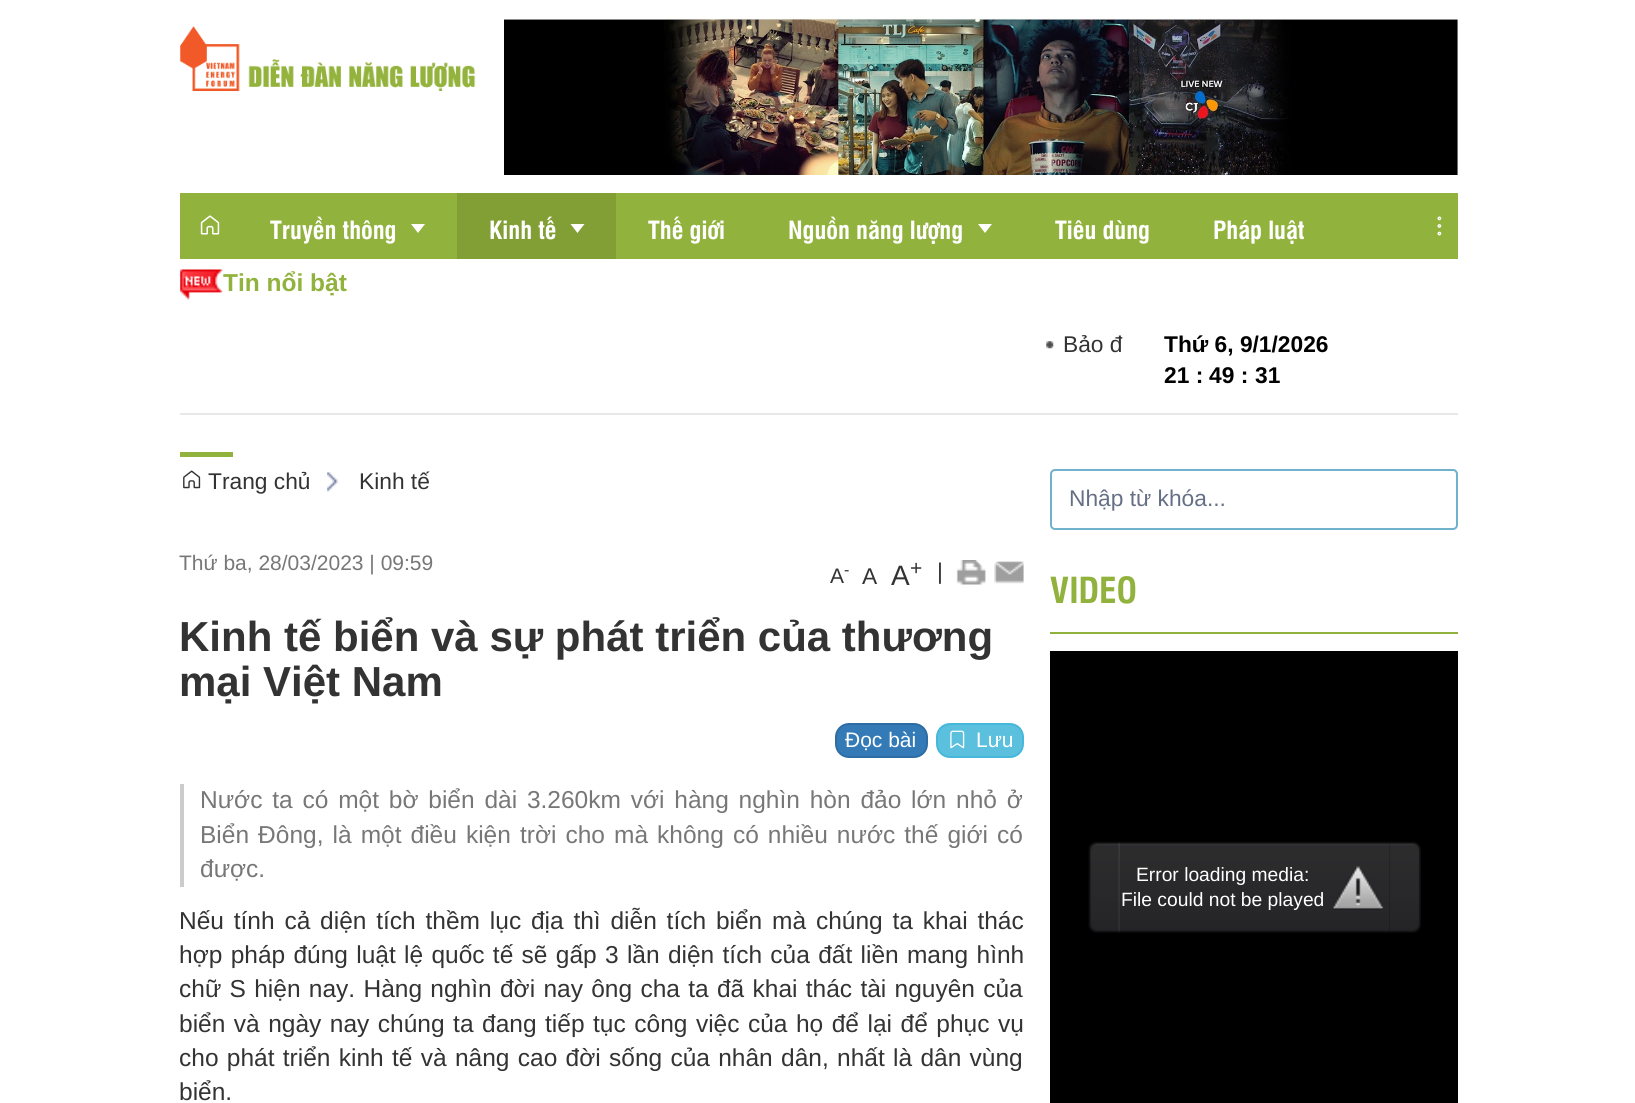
import math
import cairo


def write_spaced(ctx, x, y, s, letter, word):
	ctx.move_to(x, y)
	for ch in s:
		ctx.show_text(ch)
		ctx.rel_move_to(letter + word * (ch == ' '), 0)

def round_path(ctx, x, y, w, h, r):
	ctx.new_sub_path()
	for i, (u, v) in enumerate([(x + w - r, y + h - r), (x + r, y + h - r), (x + r, y + r), (x + w - r, y + r)]):
		ctx.arc(u, v, r, i * math.pi / 2, (i + 1) * math.pi / 2)
	ctx.close_path()

def paste(ctx, path, x, y, w, h):
	ctx.save()
	ctx.set_source_surface(cairo.ImageSurface.create_from_png(path), x, y)
	ctx.rectangle(x, y, w, h)
	ctx.fill()
	ctx.restore()

def draw(ctx):
	ctx.set_source_rgb(1, 1, 1)
	ctx.paint()
	paste(ctx, 'media/1.png', 180, 26, 296, 66)
	paste(ctx, 'media/2.png', 504, 18, 954, 157)
	ctx.set_source_rgb(0.569, 0.698, 0.239)
	ctx.rectangle(180, 193, 1278, 66)
	ctx.fill()
	paste(ctx, 'media/3.png', 200, 215, 20, 20)
	ctx.select_font_face('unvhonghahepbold', cairo.FONT_SLANT_NORMAL, cairo.FONT_WEIGHT_BOLD)
	ctx.set_font_size(24.5)
	ctx.set_source_rgb(1, 1, 1)
	ctx.move_to(270, 239)
	ctx.show_text('Truyền thông')
	ctx.new_path()
	ctx.move_to(411, 224)
	ctx.line_to(425, 224)
	ctx.line_to(418, 233)
	ctx.close_path()
	ctx.fill()
	ctx.set_source_rgb(0.51, 0.624, 0.212)
	ctx.rectangle(457, 193, 159, 66)
	ctx.fill()
	ctx.set_source_rgb(1, 1, 1)
	ctx.move_to(489, 239)
	ctx.show_text('Kinh tế')
	ctx.new_path()
	ctx.move_to(570.5, 224)
	ctx.line_to(584.5, 224)
	ctx.line_to(577.5, 233)
	ctx.close_path()
	ctx.fill()
	ctx.move_to(648, 239)
	ctx.show_text('Thế giới')
	ctx.move_to(788, 239)
	ctx.show_text('Nguồn năng lượng')
	ctx.new_path()
	ctx.move_to(978, 224)
	ctx.line_to(992, 224)
	ctx.line_to(985, 233)
	ctx.close_path()
	ctx.fill()
	ctx.move_to(1055, 239)
	ctx.show_text('Tiêu dùng')
	ctx.move_to(1213, 239)
	ctx.show_text('Pháp luật')
	paste(ctx, 'media/4.png', 1437, 216, 5, 20)
	ctx.set_source_rgb(0.91, 0.91, 0.91)
	ctx.rectangle(180, 413, 1278, 2)
	ctx.fill()
	paste(ctx, 'media/5.png', 180, 269, 43, 31)
	ctx.select_font_face('Liberation Sans', cairo.FONT_SLANT_NORMAL, cairo.FONT_WEIGHT_BOLD)
	ctx.set_source_rgb(0.569, 0.698, 0.239)
	ctx.move_to(223, 291)
	ctx.show_text('Tin nổi bật')
	paste(ctx, 'media/6.png', 1046, 341, 8, 8)
	ctx.select_font_face('Liberation Sans')
	ctx.set_font_size(22.75)
	ctx.set_source_rgb(0.2, 0.2, 0.2)
	ctx.move_to(1063, 352)
	ctx.show_text('Bảo đ')
	ctx.select_font_face('Liberation Sans', cairo.FONT_SLANT_NORMAL, cairo.FONT_WEIGHT_BOLD)
	ctx.set_source_rgb(0, 0, 0)
	for x, y, s in [
		(1164, 352, 'Thứ 6, 9/1/2026'),
		(1164, 383, '21 :'),
		(1209, 383, '49 :'),
		(1255, 383, '31'),
	]:
		ctx.move_to(x, y)
		ctx.show_text(s)
	ctx.set_source_rgb(0.569, 0.698, 0.239)
	ctx.rectangle(180, 452, 53, 5)
	ctx.fill()
	paste(ctx, 'media/7.png', 183, 470, 18, 19)
	ctx.select_font_face('Liberation Sans')
	ctx.set_source_rgb(0.2, 0.2, 0.2)
	ctx.move_to(208, 489)
	ctx.show_text('Trang chủ')
	paste(ctx, 'media/8.png', 327, 472, 12, 21)
	ctx.move_to(359, 489)
	ctx.show_text('Kinh tế')
	ctx.set_font_size(21)
	ctx.set_source_rgb(0.467, 0.467, 0.467)
	ctx.move_to(179, 570)
	ctx.show_text('Thứ ba, 28/03/2023 | 09:59')
	ctx.set_source_rgb(0.2, 0.2, 0.2)
	ctx.move_to(830, 583)
	ctx.show_text('A')
	ctx.set_font_size(16)
	ctx.move_to(844, 575)
	ctx.show_text('-')
	ctx.set_font_size(22.75)
	ctx.move_to(862, 584)
	ctx.show_text('A')
	ctx.set_font_size(28)
	ctx.move_to(891, 585)
	ctx.show_text('A')
	ctx.set_font_size(21)
	ctx.move_to(910, 575)
	ctx.show_text('+')
	ctx.set_font_size(22.75)
	ctx.move_to(937, 579)
	ctx.show_text('|')
	paste(ctx, 'media/9.png', 956, 560, 30, 25)
	paste(ctx, 'media/10.png', 994, 561, 30, 23)
	ctx.select_font_face('Liberation Sans', cairo.FONT_SLANT_NORMAL, cairo.FONT_WEIGHT_BOLD)
	ctx.set_font_size(42)
	ctx.move_to(179, 651)
	ctx.show_text('Kinh tế biển và sự phát triển của thương')
	ctx.move_to(179, 696)
	ctx.show_text('mại Việt Nam')
	ctx.set_source_rgb(0.2, 0.478, 0.718)
	round_path(ctx, 836, 724, 91, 33, 13)
	ctx.fill_preserve()
	ctx.set_source_rgb(0.18, 0.427, 0.643)
	ctx.stroke()
	ctx.select_font_face('Liberation Sans')
	ctx.set_font_size(21)
	ctx.set_source_rgb(1, 1, 1)
	ctx.move_to(845, 747)
	ctx.show_text('Đọc bài')
	ctx.set_source_rgb(0.357, 0.753, 0.871)
	round_path(ctx, 937, 724, 86, 33, 13)
	ctx.fill_preserve()
	ctx.set_source_rgb(0.275, 0.722, 0.855)
	ctx.stroke()
	paste(ctx, 'media/11.png', 950, 730, 15, 19)
	ctx.set_source_rgb(1, 1, 1)
	ctx.move_to(976, 747)
	ctx.show_text('Lưu')
	ctx.set_source_rgb(0.8, 0.8, 0.8)
	ctx.rectangle(180, 784, 4, 103)
	ctx.fill()
	ctx.set_font_size(24.5)
	ctx.set_source_rgb(0.467, 0.467, 0.467)
	write_spaced(ctx, 200, 808, 'Nước ta có một bờ biển dài 3.260km với hàng nghìn hòn đảo lớn nhỏ ở', 0, 3)
	write_spaced(ctx, 200, 843, 'Biển Đông, là một điều kiện trời cho mà không có nhiều nước thế giới có', 0, 2.25)
	ctx.move_to(200, 877)
	ctx.show_text('được.')
	ctx.set_source_rgb(0.2, 0.2, 0.2)
	write_spaced(ctx, 179, 929, 'Nếu tính cả diện tích thềm lục địa thì diễn tích biển mà chúng ta khai thác', 0, 3)
	write_spaced(ctx, 179, 963, 'hợp pháp đúng luật lệ quốc tế sẽ gấp 3 lần diện tích của đất liền mang hình', 0, 1.5)
	write_spaced(ctx, 179, 997, 'chữ S hiện nay. Hàng nghìn đời nay ông cha ta đã khai thác tài nguyên của', 0, 1.5)
	write_spaced(ctx, 179, 1032, 'biển và ngày nay chúng ta đang tiếp tục công việc của họ để lại để phục vụ', 0, 1.7)
	write_spaced(ctx, 179, 1066, 'cho phát triển kinh tế và nâng cao đời sống của nhân dân, nhất là dân vùng', 0, 1.5)
	ctx.move_to(179, 1100)
	ctx.show_text('biển.')
	round_path(ctx, 1051, 470, 406, 59, 4)
	ctx.set_source_rgb(0.439, 0.694, 0.8)
	ctx.stroke()
	ctx.set_font_size(22.75)
	ctx.set_source_rgb(0.4, 0.439, 0.522)
	ctx.move_to(1069, 506)
	ctx.show_text('Nhập từ khóa...')
	ctx.set_source_rgb(0.569, 0.698, 0.239)
	ctx.rectangle(1050, 632, 408, 2)
	ctx.fill()
	ctx.select_font_face('unvhonghahepbold', cairo.FONT_SLANT_NORMAL, cairo.FONT_WEIGHT_BOLD)
	ctx.set_font_size(35)
	ctx.move_to(1050, 603)
	ctx.show_text('VIDEO')
	ctx.set_source_rgb(0, 0, 0)
	ctx.rectangle(1050, 651, 408, 452)
	ctx.fill()
	paste(ctx, 'media/12.png', 1088, 841, 333, 92)
	ctx.select_font_face('Liberation Sans')
	ctx.set_font_size(19.25)
	ctx.set_source_rgb(1, 1, 1)
	ctx.move_to(1136, 881)
	ctx.show_text('Error loading media:')
	ctx.move_to(1121, 906)
	ctx.show_text('File could not be played')
	paste(ctx, 'media/13.png', 1333, 866, 50, 44)


surface = cairo.ImageSurface(cairo.FORMAT_RGB24, 1635, 1103)
ctx = cairo.Context(surface)
options = cairo.FontOptions()
options.set_hint_metrics(cairo.HINT_METRICS_OFF)
options.set_hint_style(cairo.HINT_STYLE_NONE)
ctx.set_font_options(options)
ctx.set_miter_limit(4)
draw(ctx)
surface.write_to_png('image.png')
